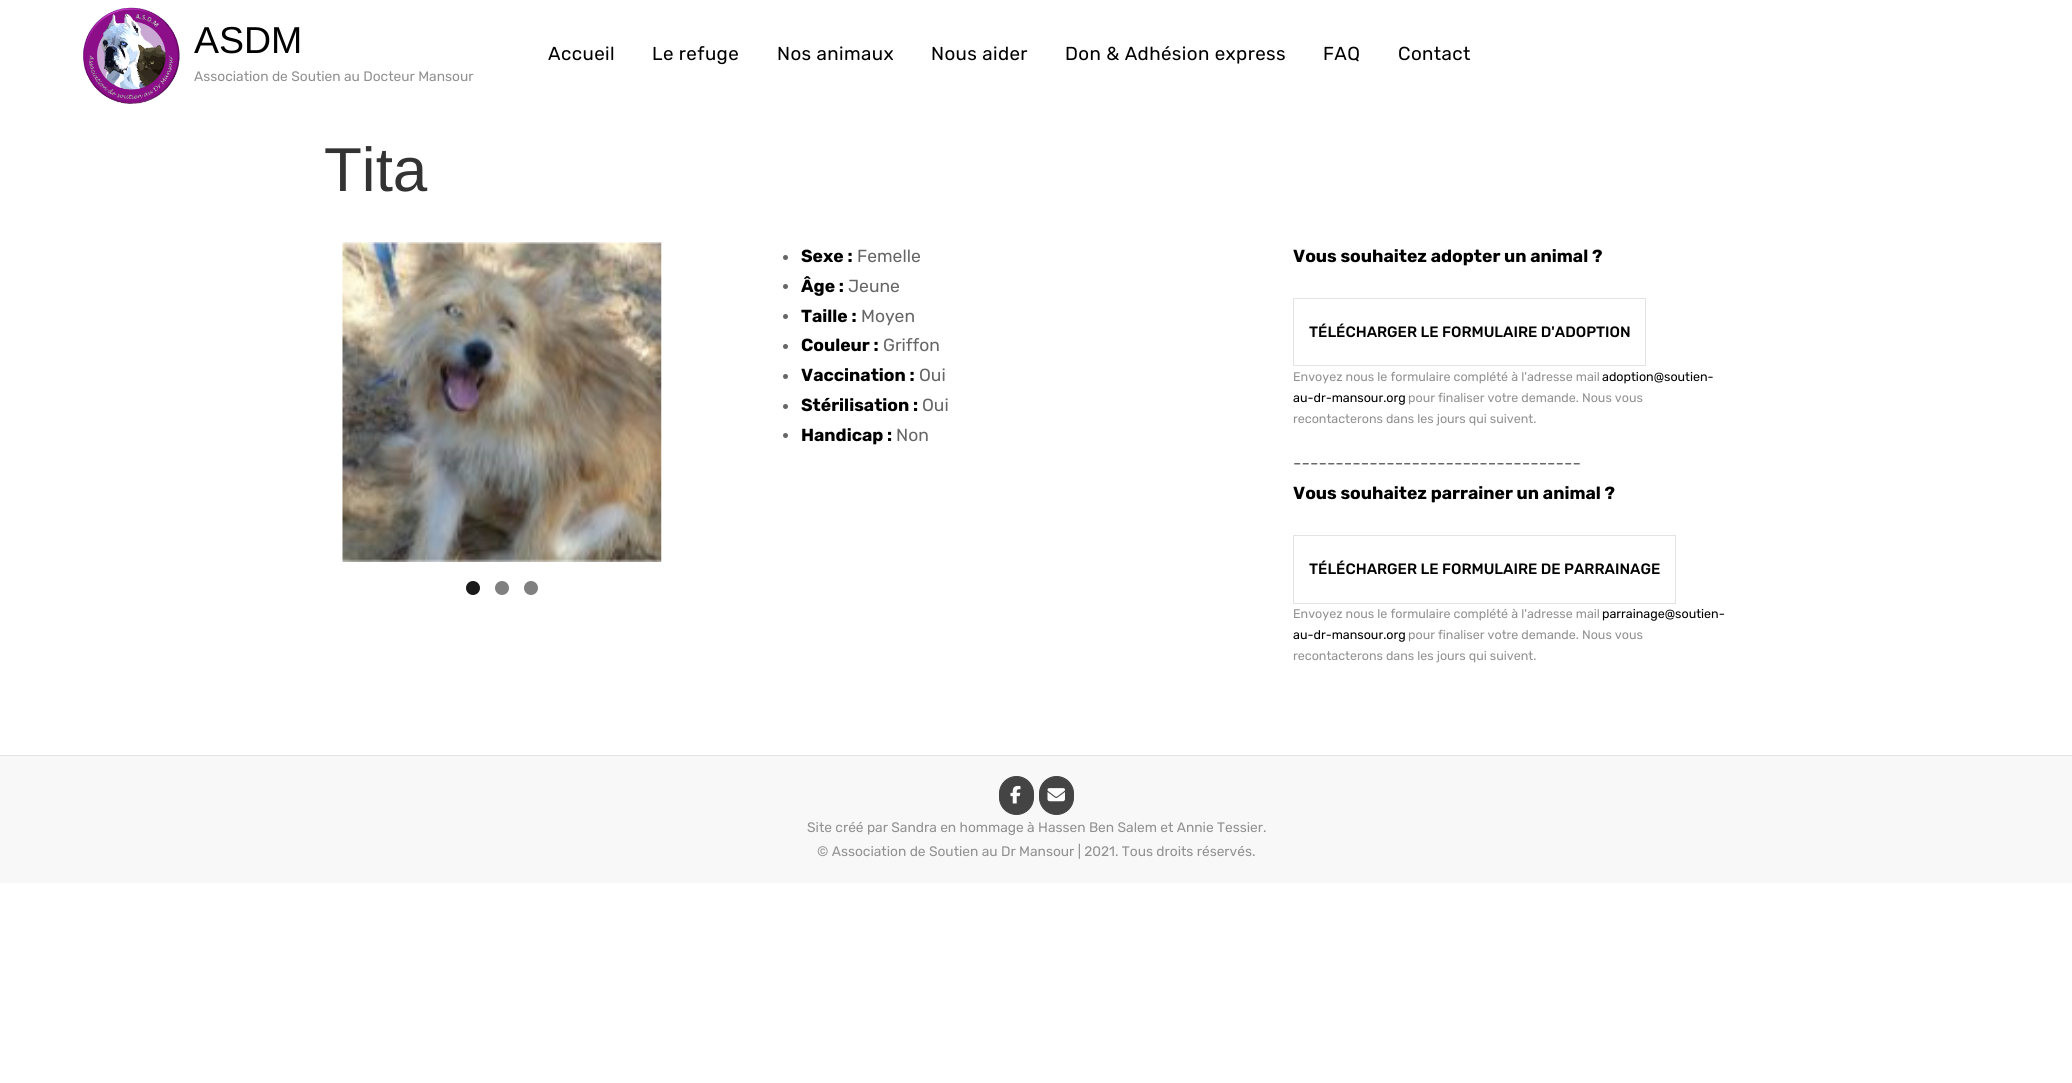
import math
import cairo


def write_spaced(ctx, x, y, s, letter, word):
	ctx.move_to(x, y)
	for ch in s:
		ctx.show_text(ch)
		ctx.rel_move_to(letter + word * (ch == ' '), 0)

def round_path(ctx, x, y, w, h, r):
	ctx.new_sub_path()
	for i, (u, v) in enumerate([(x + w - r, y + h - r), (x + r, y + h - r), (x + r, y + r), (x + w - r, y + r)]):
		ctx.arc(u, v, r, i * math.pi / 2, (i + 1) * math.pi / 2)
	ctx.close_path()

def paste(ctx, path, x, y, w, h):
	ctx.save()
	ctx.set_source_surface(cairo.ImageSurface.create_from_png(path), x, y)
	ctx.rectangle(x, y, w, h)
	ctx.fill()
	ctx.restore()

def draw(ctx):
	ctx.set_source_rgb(1, 1, 1)
	ctx.paint()
	paste(ctx, 'media/1.png', 83, 7, 97, 97)
	ctx.select_font_face('Liberation Sans')
	ctx.set_font_size(37.5)
	ctx.set_source_rgb(0, 0, 0)
	ctx.move_to(194, 53)
	ctx.show_text('ASDM')
	ctx.select_font_face('Rubik')
	ctx.set_font_size(13.75)
	ctx.set_source_rgb(0.569, 0.569, 0.569)
	ctx.move_to(194, 81)
	ctx.show_text('Association de Soutien au Docteur Mansour')
	ctx.set_font_size(18.75)
	ctx.set_source_rgb(0, 0, 0)
	for x, y, s in [
		(548, 60, 'Accueil'),
		(652, 60, 'Le refuge'),
		(777, 60, 'Nos animaux'),
		(931, 60, 'Nous aider'),
		(1065, 60, 'Don & Adhésion express'),
		(1323, 60, 'FAQ'),
		(1398, 60, 'Contact'),
	]:
		write_spaced(ctx, x, y, s, 0.4, 0)
	ctx.select_font_face('Liberation Sans')
	ctx.set_font_size(62)
	ctx.set_source_rgb(0.2, 0.2, 0.2)
	ctx.move_to(324, 191)
	ctx.show_text('Tita')
	paste(ctx, 'media/2.png', 342, 242, 320, 320)
	ctx.set_source_rgb(0.102, 0.102, 0.102)
	ctx.arc(473, 588, 7, 0, 2 * math.pi)
	ctx.fill()
	ctx.set_source_rgb(0.502, 0.502, 0.502)
	ctx.arc(502, 588, 7, 0, 2 * math.pi)
	ctx.fill()
	ctx.arc(531, 588, 7, 0, 2 * math.pi)
	ctx.fill()
	ctx.set_source_rgb(0.4, 0.4, 0.4)
	ctx.arc(785.5, 257.5, 2.5, 0, 2 * math.pi)
	ctx.fill()
	ctx.select_font_face('Rubik', cairo.FONT_SLANT_NORMAL, cairo.FONT_WEIGHT_BOLD)
	ctx.set_font_size(17.5)
	ctx.set_source_rgb(0, 0, 0)
	ctx.move_to(801, 262)
	ctx.show_text('Sexe :')
	ctx.select_font_face('Rubik')
	ctx.set_source_rgb(0.4, 0.4, 0.4)
	ctx.move_to(857, 262)
	ctx.show_text('Femelle')
	ctx.new_path()
	ctx.arc(785.5, 286.5, 2.5, 0, 2 * math.pi)
	ctx.fill()
	ctx.select_font_face('Rubik', cairo.FONT_SLANT_NORMAL, cairo.FONT_WEIGHT_BOLD)
	ctx.set_source_rgb(0, 0, 0)
	ctx.move_to(801, 292)
	ctx.show_text('Âge :')
	ctx.select_font_face('Rubik')
	ctx.set_source_rgb(0.4, 0.4, 0.4)
	ctx.move_to(848, 292)
	ctx.show_text('Jeune')
	ctx.new_path()
	ctx.arc(785.5, 316.5, 2.5, 0, 2 * math.pi)
	ctx.fill()
	ctx.select_font_face('Rubik', cairo.FONT_SLANT_NORMAL, cairo.FONT_WEIGHT_BOLD)
	ctx.set_source_rgb(0, 0, 0)
	ctx.move_to(801, 322)
	ctx.show_text('Taille :')
	ctx.select_font_face('Rubik')
	ctx.set_source_rgb(0.4, 0.4, 0.4)
	ctx.move_to(861, 322)
	ctx.show_text('Moyen')
	ctx.new_path()
	ctx.arc(785.5, 346.5, 2.5, 0, 2 * math.pi)
	ctx.fill()
	ctx.select_font_face('Rubik', cairo.FONT_SLANT_NORMAL, cairo.FONT_WEIGHT_BOLD)
	ctx.set_source_rgb(0, 0, 0)
	ctx.move_to(801, 351)
	ctx.show_text('Couleur :')
	ctx.select_font_face('Rubik')
	ctx.set_source_rgb(0.4, 0.4, 0.4)
	ctx.move_to(883, 351)
	ctx.show_text('Griffon')
	ctx.new_path()
	ctx.arc(785.5, 376.5, 2.5, 0, 2 * math.pi)
	ctx.fill()
	ctx.select_font_face('Rubik', cairo.FONT_SLANT_NORMAL, cairo.FONT_WEIGHT_BOLD)
	ctx.set_source_rgb(0, 0, 0)
	ctx.move_to(801, 381)
	ctx.show_text('Vaccination :')
	ctx.select_font_face('Rubik')
	ctx.set_source_rgb(0.4, 0.4, 0.4)
	ctx.move_to(919, 381)
	ctx.show_text('Oui')
	ctx.new_path()
	ctx.arc(785.5, 406.5, 2.5, 0, 2 * math.pi)
	ctx.fill()
	ctx.select_font_face('Rubik', cairo.FONT_SLANT_NORMAL, cairo.FONT_WEIGHT_BOLD)
	ctx.set_source_rgb(0, 0, 0)
	ctx.move_to(801, 411)
	ctx.show_text('Stérilisation :')
	ctx.select_font_face('Rubik')
	ctx.set_source_rgb(0.4, 0.4, 0.4)
	ctx.move_to(922, 411)
	ctx.show_text('Oui')
	ctx.new_path()
	ctx.arc(785.5, 435.5, 2.5, 0, 2 * math.pi)
	ctx.fill()
	ctx.select_font_face('Rubik', cairo.FONT_SLANT_NORMAL, cairo.FONT_WEIGHT_BOLD)
	ctx.set_source_rgb(0, 0, 0)
	ctx.move_to(801, 441)
	ctx.show_text('Handicap :')
	ctx.select_font_face('Rubik')
	ctx.set_source_rgb(0.4, 0.4, 0.4)
	ctx.move_to(896, 441)
	ctx.show_text('Non')
	ctx.select_font_face('Rubik', cairo.FONT_SLANT_NORMAL, cairo.FONT_WEIGHT_BOLD)
	ctx.set_source_rgb(0, 0, 0)
	ctx.move_to(1293, 262)
	ctx.show_text('Vous souhaitez adopter un animal ?')
	ctx.rectangle(1293.5, 298.5, 352, 67)
	ctx.set_source_rgb(0.89, 0.89, 0.89)
	ctx.set_line_width(1)
	ctx.stroke()
	ctx.select_font_face('Rubik Medium')
	ctx.set_font_size(15)
	ctx.set_source_rgb(0, 0, 0)
	ctx.move_to(1309, 337)
	ctx.show_text('TÉLÉCHARGER LE FORMULAIRE D\'ADOPTION')
	ctx.select_font_face('Rubik')
	ctx.set_font_size(12.5)
	ctx.set_source_rgb(0.569, 0.569, 0.569)
	ctx.move_to(1293, 381)
	ctx.show_text('Envoyez nous le formulaire complété à l\'adresse mail')
	ctx.set_source_rgb(0, 0, 0)
	ctx.move_to(1602, 381)
	ctx.show_text('adoption@soutien-')
	ctx.move_to(1293, 402)
	ctx.show_text('au-dr-mansour.org')
	ctx.set_source_rgb(0.569, 0.569, 0.569)
	ctx.move_to(1408, 402)
	ctx.show_text('pour finaliser votre demande. Nous vous')
	ctx.move_to(1293, 423)
	ctx.show_text('recontacterons dans les jours qui suivent.')
	ctx.set_font_size(17.5)
	ctx.set_source_rgb(0.4, 0.4, 0.4)
	ctx.move_to(1293, 469)
	ctx.show_text('----------------------------------')
	ctx.select_font_face('Rubik', cairo.FONT_SLANT_NORMAL, cairo.FONT_WEIGHT_BOLD)
	ctx.set_source_rgb(0, 0, 0)
	ctx.move_to(1293, 499)
	ctx.show_text('Vous souhaitez parrainer un animal ?')
	ctx.rectangle(1293.5, 535.5, 382, 68)
	ctx.set_source_rgb(0.89, 0.89, 0.89)
	ctx.stroke()
	ctx.select_font_face('Rubik Medium')
	ctx.set_font_size(15)
	ctx.set_source_rgb(0, 0, 0)
	ctx.move_to(1309, 574)
	ctx.show_text('TÉLÉCHARGER LE FORMULAIRE DE PARRAINAGE')
	ctx.select_font_face('Rubik')
	ctx.set_font_size(12.5)
	ctx.set_source_rgb(0.569, 0.569, 0.569)
	ctx.move_to(1293, 618)
	ctx.show_text('Envoyez nous le formulaire complété à l\'adresse mail')
	ctx.set_source_rgb(0, 0, 0)
	ctx.move_to(1602, 618)
	ctx.show_text('parrainage@soutien-')
	ctx.move_to(1293, 639)
	ctx.show_text('au-dr-mansour.org')
	ctx.set_source_rgb(0.569, 0.569, 0.569)
	ctx.move_to(1408, 639)
	ctx.show_text('pour finaliser votre demande. Nous vous')
	ctx.move_to(1293, 660)
	ctx.show_text('recontacterons dans les jours qui suivent.')
	ctx.set_source_rgb(0.969, 0.969, 0.969)
	ctx.rectangle(0, 756, 2072, 127)
	ctx.fill()
	ctx.set_source_rgb(0.89, 0.89, 0.89)
	ctx.rectangle(0, 755, 2072, 1)
	ctx.fill()
	ctx.set_source_rgb(0.267, 0.267, 0.267)
	round_path(ctx, 999.5, 776.5, 34, 38, 17)
	ctx.fill_preserve()
	ctx.stroke()
	paste(ctx, 'media/3.png', 1010, 785, 11, 19)
	round_path(ctx, 1039.5, 776.5, 34, 38, 17)
	ctx.fill_preserve()
	ctx.stroke()
	paste(ctx, 'media/4.png', 1047, 788, 18, 14)
	ctx.set_font_size(13.75)
	ctx.set_source_rgb(0.569, 0.569, 0.569)
	ctx.move_to(807, 832)
	ctx.show_text('Site créé par Sandra en hommage à Hassen Ben Salem et Annie Tessier.')
	ctx.move_to(817, 856)
	ctx.show_text('© Association de Soutien au Dr Mansour | 2021. Tous droits réservés.')


surface = cairo.ImageSurface(cairo.FORMAT_RGB24, 2072, 1083)
ctx = cairo.Context(surface)
options = cairo.FontOptions()
options.set_hint_metrics(cairo.HINT_METRICS_OFF)
options.set_hint_style(cairo.HINT_STYLE_NONE)
ctx.set_font_options(options)
ctx.set_miter_limit(4)
draw(ctx)
surface.write_to_png('image.png')
